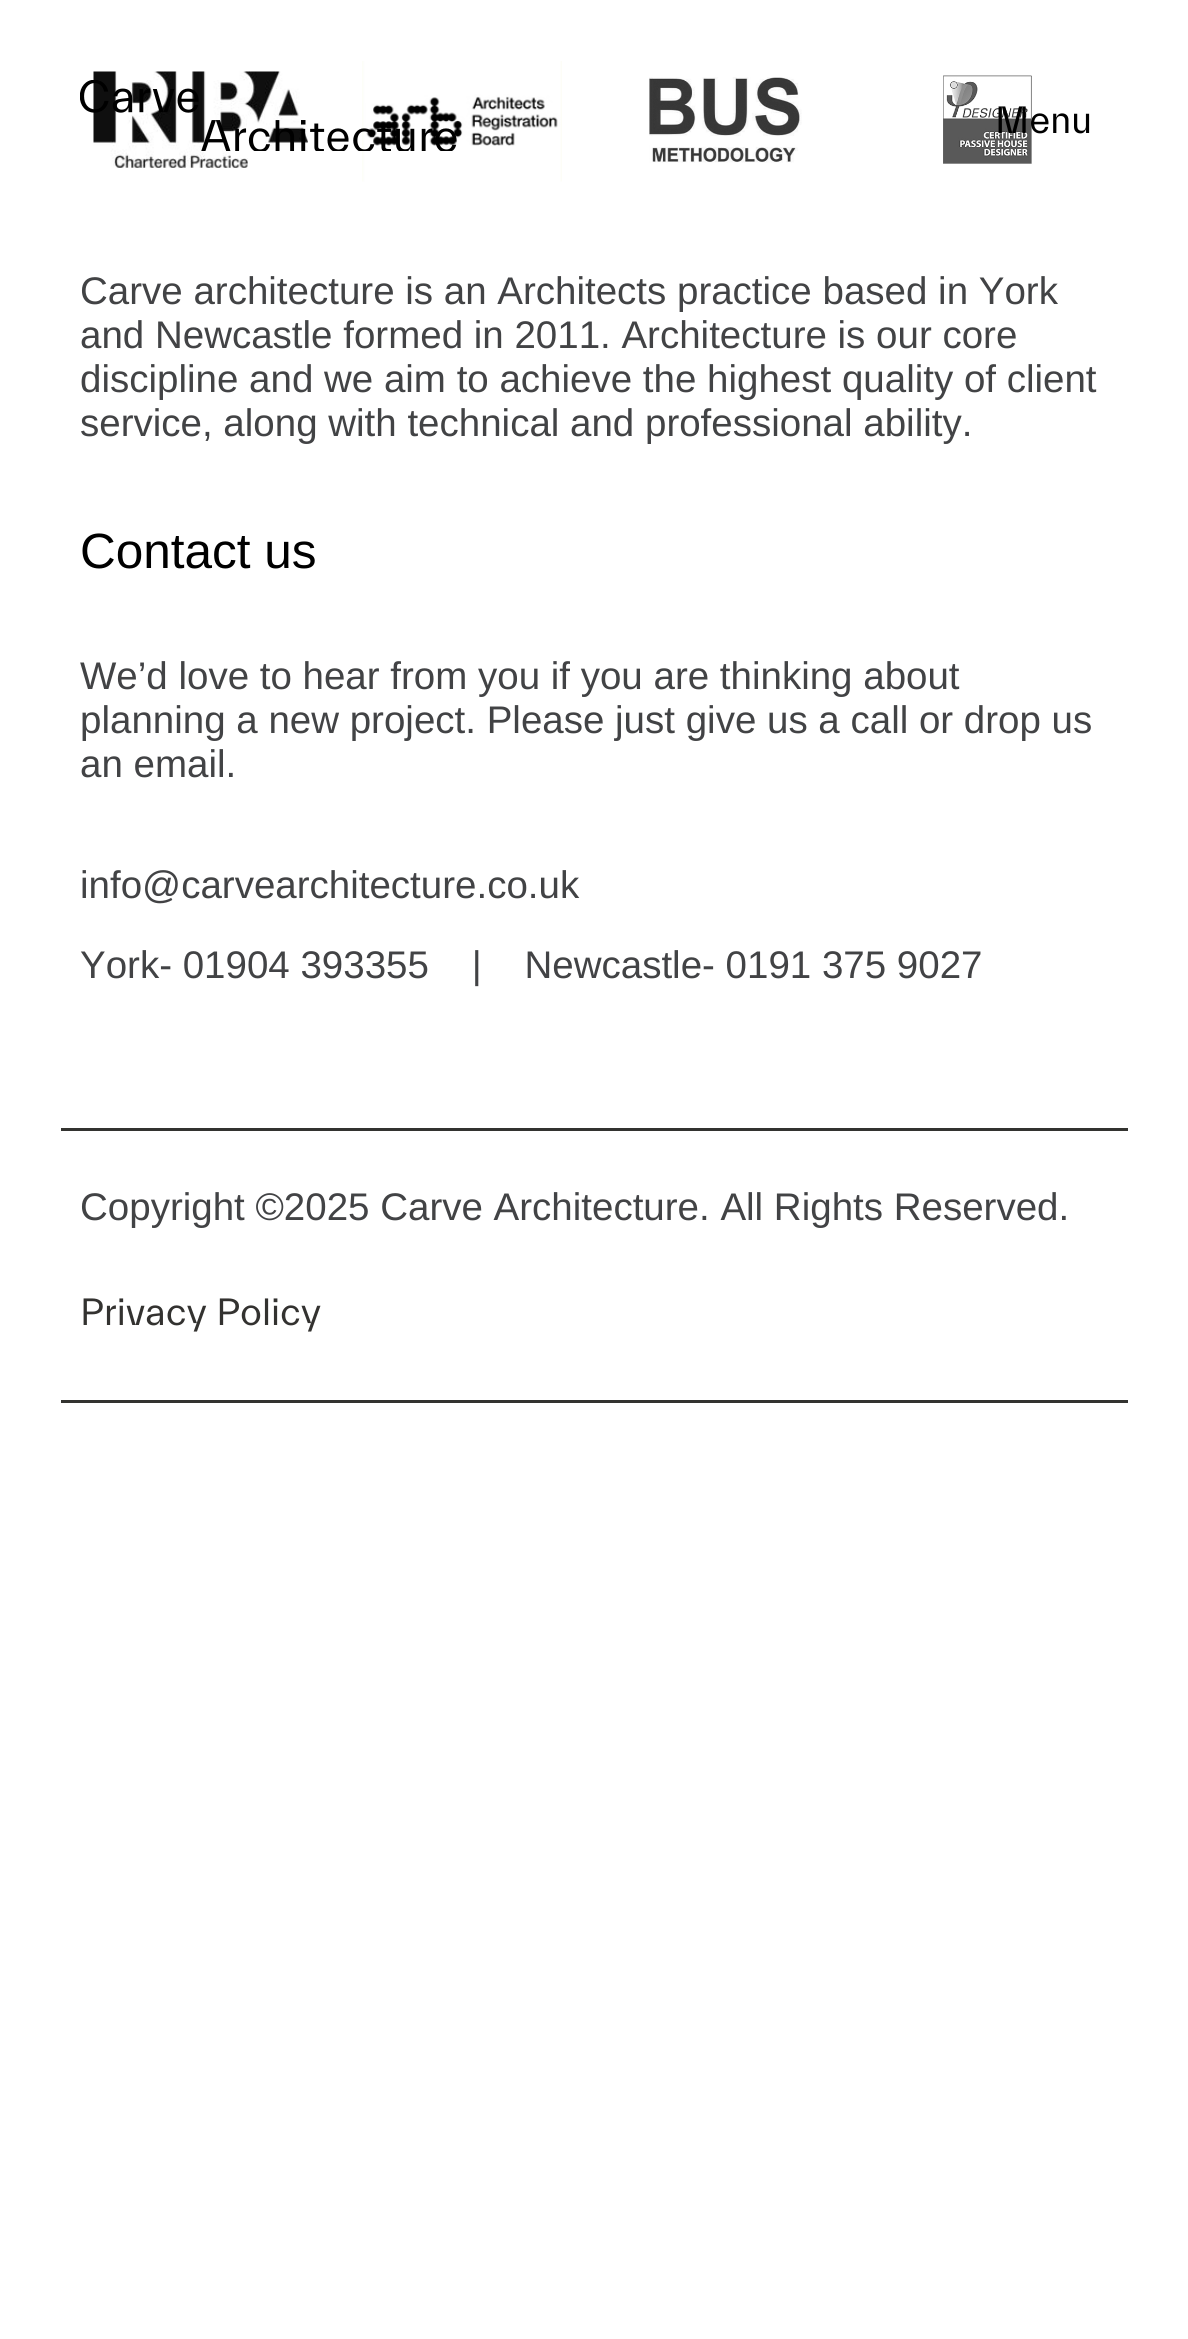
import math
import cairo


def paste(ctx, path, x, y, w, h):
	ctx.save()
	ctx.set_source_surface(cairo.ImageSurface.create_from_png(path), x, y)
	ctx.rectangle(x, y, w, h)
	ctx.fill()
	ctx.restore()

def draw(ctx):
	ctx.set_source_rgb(1, 1, 1)
	ctx.paint()
	paste(ctx, 'media/2.png', 93, 71, 215, 97)
	paste(ctx, 'media/3.png', 362, 61, 200, 121)
	paste(ctx, 'media/1.png', 80, 80, 377, 71)
	paste(ctx, 'media/5.png', 943, 75, 89, 89)
	ctx.select_font_face('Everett')
	ctx.set_font_size(38.5)
	ctx.set_source_rgb(0, 0, 0)
	ctx.move_to(995, 133)
	ctx.show_text('Menu')
	paste(ctx, 'media/4.png', 649, 77, 153, 86)
	ctx.select_font_face('Liberation Sans')
	ctx.set_source_rgb(0.259, 0.263, 0.271)
	for x, y, s in [
		(80, 304, 'Carve architecture is an Architects practice based in York'),
		(80, 348, 'and Newcastle formed in 2011. Architecture is our core'),
		(80, 392, 'discipline and we aim to achieve the highest quality of client'),
		(80, 436, 'service, along with technical and professional ability.'),
	]:
		ctx.move_to(x, y)
		ctx.show_text(s)
	ctx.set_font_size(49.5)
	ctx.set_source_rgb(0, 0, 0)
	ctx.move_to(80, 568)
	ctx.show_text('Contact us')
	ctx.set_font_size(38.5)
	ctx.set_source_rgb(0.259, 0.263, 0.271)
	for x, y, s in [
		(80, 689, 'We’d love to hear from you if you are thinking about'),
		(80, 733, 'planning a new project. Please just give us a call or drop us'),
		(80, 777, 'an email.'),
		(80, 898, 'info@carvearchitecture.co.uk'),
		(80, 978, 'York- 01904 393355    |    Newcastle- 0191 375 9027'),
	]:
		ctx.move_to(x, y)
		ctx.show_text(s)
	ctx.set_source_rgb(0.2, 0.2, 0.188)
	ctx.rectangle(61, 1128, 1067, 3)
	ctx.fill()
	ctx.rectangle(61, 1400, 1067, 3)
	ctx.fill()
	ctx.set_source_rgb(0.259, 0.263, 0.271)
	ctx.move_to(80, 1220)
	ctx.show_text('Copyright ©2025 Carve Architecture. All Rights Reserved.')
	ctx.select_font_face('Everett')
	ctx.set_source_rgb(0.2, 0.196, 0.188)
	ctx.move_to(80, 1325)
	ctx.show_text('Privacy Policy')


surface = cairo.ImageSurface(cairo.FORMAT_RGB24, 1188, 2339)
ctx = cairo.Context(surface)
options = cairo.FontOptions()
options.set_hint_metrics(cairo.HINT_METRICS_OFF)
options.set_hint_style(cairo.HINT_STYLE_NONE)
ctx.set_font_options(options)
ctx.set_miter_limit(4)
draw(ctx)
surface.write_to_png('image.png')
